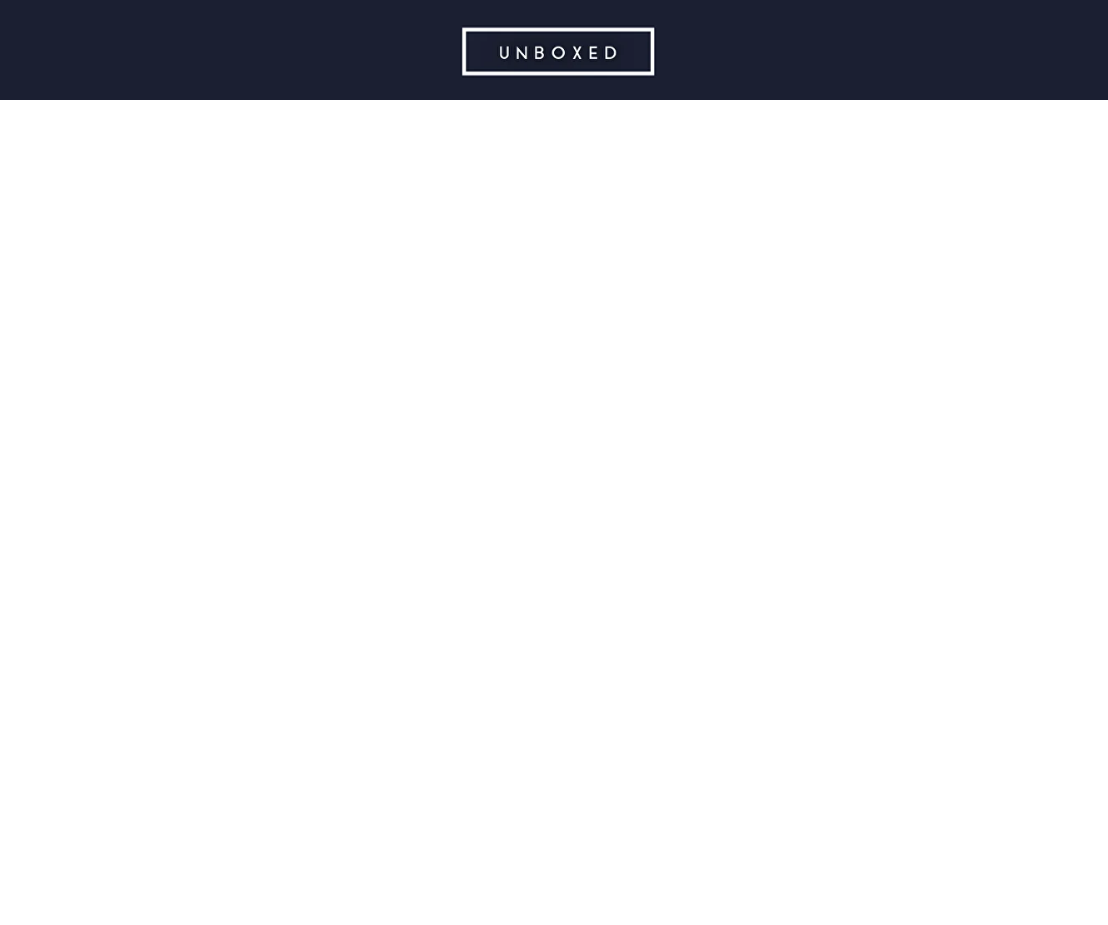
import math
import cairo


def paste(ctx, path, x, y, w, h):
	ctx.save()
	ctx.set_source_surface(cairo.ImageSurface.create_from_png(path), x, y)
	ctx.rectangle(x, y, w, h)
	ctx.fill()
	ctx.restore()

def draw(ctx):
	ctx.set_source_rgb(1, 1, 1)
	ctx.paint()
	ctx.set_source_rgb(0.106, 0.122, 0.196)
	ctx.rectangle(0, 0, 1108, 100)
	ctx.fill()
	paste(ctx, 'media/1.png', 460, 25, 197, 53)


surface = cairo.ImageSurface(cairo.FORMAT_RGB24, 1108, 925)
ctx = cairo.Context(surface)
options = cairo.FontOptions()
options.set_hint_metrics(cairo.HINT_METRICS_OFF)
options.set_hint_style(cairo.HINT_STYLE_NONE)
ctx.set_font_options(options)
ctx.set_miter_limit(4)
draw(ctx)
surface.write_to_png('image.png')
